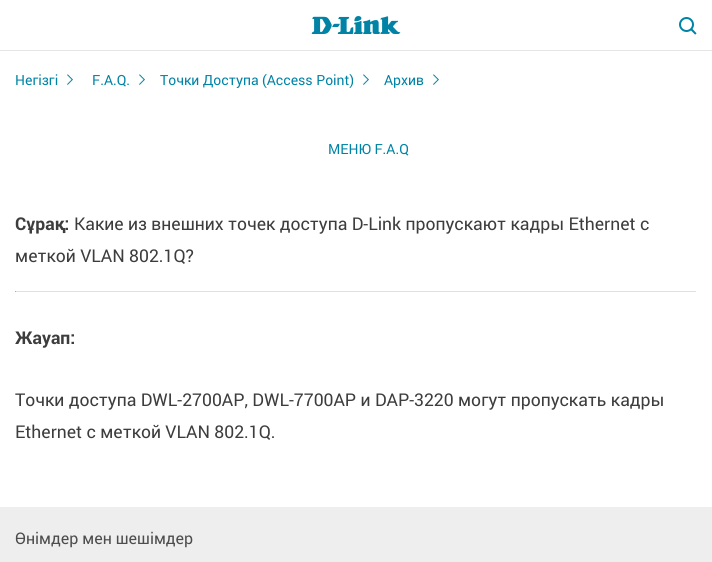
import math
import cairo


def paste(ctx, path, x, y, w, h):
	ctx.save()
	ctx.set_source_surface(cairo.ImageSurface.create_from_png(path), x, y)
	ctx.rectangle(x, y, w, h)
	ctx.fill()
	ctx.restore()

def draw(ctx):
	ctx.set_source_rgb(1, 1, 1)
	ctx.paint()
	ctx.set_source_rgb(0.898, 0.898, 0.898)
	ctx.rectangle(0, 50, 712, 1)
	ctx.fill()
	paste(ctx, 'media/1.png', 311, 16, 90, 18)
	paste(ctx, 'media/2.png', 679, 17, 18, 18)
	ctx.select_font_face('Roboto')
	ctx.set_font_size(14)
	ctx.set_source_rgb(0, 0.514, 0.647)
	ctx.move_to(15, 85)
	ctx.show_text('Негізгі')
	paste(ctx, 'media/3.png', 67, 74, 6, 11)
	ctx.move_to(92, 85)
	ctx.show_text('F.A.Q.')
	paste(ctx, 'media/3.png', 139, 74, 6, 11)
	ctx.move_to(160, 85)
	ctx.show_text('Точки Доступа (Access Point)')
	paste(ctx, 'media/3.png', 363, 74, 6, 11)
	ctx.move_to(384, 85)
	ctx.show_text('Архив')
	paste(ctx, 'media/3.png', 433, 74, 6, 11)
	ctx.move_to(328, 154)
	ctx.show_text('МЕНЮ F.A.Q')
	ctx.select_font_face('Roboto', cairo.FONT_SLANT_NORMAL, cairo.FONT_WEIGHT_BOLD)
	ctx.set_font_size(17.6)
	ctx.set_source_rgb(0.239, 0.239, 0.239)
	ctx.move_to(15, 230)
	ctx.show_text('Сұрақ:')
	ctx.select_font_face('Roboto')
	ctx.move_to(74, 230)
	ctx.show_text('Какие из внешних точек доступа D-Link пропускают кадры Ethernet с')
	ctx.move_to(15, 262)
	ctx.show_text('меткой VLAN 802.1Q?')
	ctx.set_source_rgb(0.882, 0.882, 0.882)
	ctx.rectangle(15, 291, 682, 1)
	ctx.fill()
	ctx.set_source_rgb(1, 1, 1)
	ctx.rectangle(696, 291, 1, 1)
	ctx.fill()
	ctx.set_source_rgb(0.667, 0.667, 0.667)
	ctx.rectangle(15, 291, 1, 1)
	ctx.fill()
	ctx.select_font_face('Roboto', cairo.FONT_SLANT_NORMAL, cairo.FONT_WEIGHT_BOLD)
	ctx.set_source_rgb(0.239, 0.239, 0.239)
	ctx.move_to(15, 344)
	ctx.show_text('Жауап:')
	ctx.select_font_face('Roboto')
	ctx.move_to(15, 406)
	ctx.show_text('Точки доступа DWL-2700AP, DWL-7700AP и DAP-3220 могут пропускать кадры')
	ctx.move_to(15, 438)
	ctx.show_text('Ethernet с меткой VLAN 802.1Q.')
	ctx.set_source_rgb(0.933, 0.933, 0.933)
	ctx.rectangle(0, 507, 712, 55)
	ctx.fill()
	ctx.set_font_size(16)
	ctx.set_source_rgb(0.302, 0.302, 0.302)
	ctx.move_to(15, 544)
	ctx.show_text('Өнімдер мен шешімдер')


surface = cairo.ImageSurface(cairo.FORMAT_RGB24, 712, 562)
ctx = cairo.Context(surface)
options = cairo.FontOptions()
options.set_hint_metrics(cairo.HINT_METRICS_OFF)
options.set_hint_style(cairo.HINT_STYLE_NONE)
ctx.set_font_options(options)
ctx.set_miter_limit(4)
draw(ctx)
surface.write_to_png('image.png')
